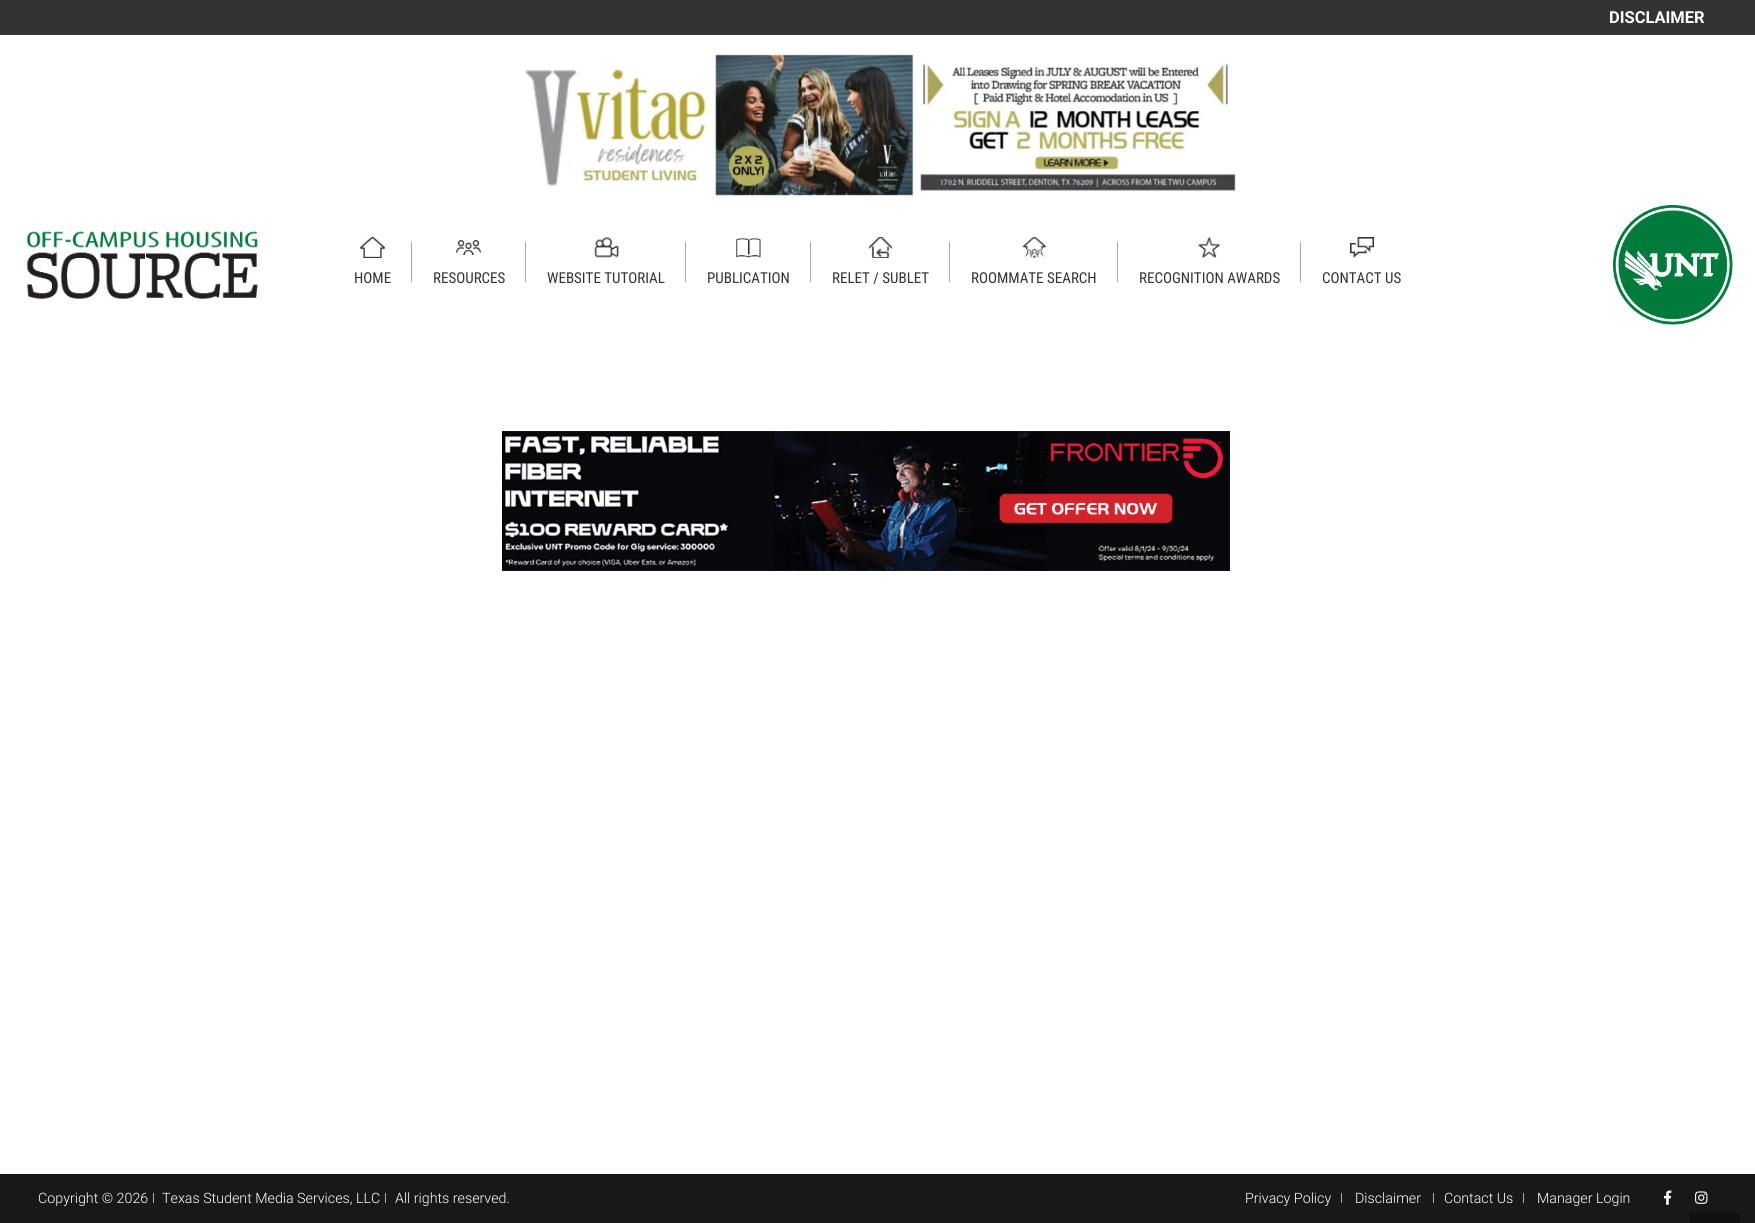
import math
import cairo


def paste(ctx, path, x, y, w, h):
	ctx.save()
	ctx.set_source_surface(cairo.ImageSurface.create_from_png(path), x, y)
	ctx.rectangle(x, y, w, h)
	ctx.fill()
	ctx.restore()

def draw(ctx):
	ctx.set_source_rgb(1, 1, 1)
	ctx.paint()
	ctx.set_source_rgb(0.2, 0.2, 0.2)
	ctx.rectangle(0, 0, 1755, 35)
	ctx.fill()
	ctx.select_font_face('Roboto', cairo.FONT_SLANT_NORMAL, cairo.FONT_WEIGHT_BOLD)
	ctx.set_font_size(16.5)
	ctx.set_source_rgb(1, 1, 1)
	ctx.move_to(1609, 23)
	ctx.show_text('DISCLAIMER')
	paste(ctx, 'media/1.png', 525, 54, 711, 142)
	paste(ctx, 'media/2.png', 26, 231, 232, 68)
	paste(ctx, 'media/3.png', 360, 237, 25, 21)
	ctx.set_source_rgb(0.655, 0.655, 0.655)
	ctx.rectangle(411, 242, 1, 40)
	ctx.fill()
	ctx.select_font_face('Roboto Condensed')
	ctx.set_font_size(15)
	ctx.set_source_rgb(0.2, 0.2, 0.2)
	ctx.move_to(354, 283)
	ctx.show_text('HOME')
	paste(ctx, 'media/4.png', 456, 240, 25, 15)
	ctx.set_source_rgb(0.655, 0.655, 0.655)
	ctx.rectangle(525, 242, 1, 40)
	ctx.fill()
	ctx.set_source_rgb(0.2, 0.2, 0.2)
	ctx.move_to(433, 283)
	ctx.show_text('RESOURCES')
	paste(ctx, 'media/5.png', 594, 237, 25, 21)
	ctx.set_source_rgb(0.655, 0.655, 0.655)
	ctx.rectangle(685, 242, 1, 40)
	ctx.fill()
	ctx.set_source_rgb(0.2, 0.2, 0.2)
	ctx.move_to(547, 283)
	ctx.show_text('WEBSITE TUTORIAL')
	paste(ctx, 'media/6.png', 736, 237, 25, 21)
	ctx.set_source_rgb(0.655, 0.655, 0.655)
	ctx.rectangle(810, 242, 1, 40)
	ctx.fill()
	ctx.set_source_rgb(0.2, 0.2, 0.2)
	ctx.move_to(707, 283)
	ctx.show_text('PUBLICATION')
	paste(ctx, 'media/7.png', 869, 237, 23, 21)
	ctx.set_source_rgb(0.655, 0.655, 0.655)
	ctx.rectangle(949, 242, 1, 40)
	ctx.fill()
	ctx.set_source_rgb(0.2, 0.2, 0.2)
	ctx.move_to(832, 283)
	ctx.show_text('RELET / SUBLET')
	paste(ctx, 'media/8.png', 1022, 237, 24, 21)
	ctx.set_source_rgb(0.655, 0.655, 0.655)
	ctx.rectangle(1117, 242, 1, 40)
	ctx.fill()
	ctx.set_source_rgb(0.2, 0.2, 0.2)
	ctx.move_to(971, 283)
	ctx.show_text('ROOMMATE SEARCH')
	paste(ctx, 'media/9.png', 1198, 237, 22, 21)
	ctx.set_source_rgb(0.655, 0.655, 0.655)
	ctx.rectangle(1300, 242, 1, 40)
	ctx.fill()
	ctx.set_source_rgb(0.2, 0.2, 0.2)
	ctx.move_to(1139, 283)
	ctx.show_text('RECOGNITION AWARDS')
	paste(ctx, 'media/10.png', 1350, 237, 24, 21)
	ctx.move_to(1322, 283)
	ctx.show_text('CONTACT US')
	paste(ctx, 'media/11.png', 1613, 205, 120, 120)
	paste(ctx, 'media/12.png', 502, 431, 728, 140)
	ctx.set_source_rgb(0.094, 0.094, 0.094)
	ctx.rectangle(0, 1174, 1755, 49)
	ctx.fill()
	ctx.select_font_face('Roboto Light')
	ctx.set_font_size(14.25)
	ctx.set_source_rgb(1, 1, 1)
	ctx.move_to(38, 1203)
	ctx.show_text('Copyright © 2026')
	ctx.set_source_rgb(0.655, 0.655, 0.655)
	ctx.rectangle(153, 1193, 1, 10)
	ctx.fill()
	ctx.set_source_rgb(1, 1, 1)
	ctx.move_to(162, 1203)
	ctx.show_text('Texas Student Media Services, LLC')
	ctx.set_source_rgb(0.655, 0.655, 0.655)
	ctx.rectangle(385, 1193, 1, 10)
	ctx.fill()
	ctx.set_source_rgb(1, 1, 1)
	ctx.move_to(395, 1203)
	ctx.show_text('All rights reserved.')
	ctx.move_to(1245, 1203)
	ctx.show_text('Privacy Policy')
	ctx.set_source_rgb(0.655, 0.655, 0.655)
	ctx.rectangle(1341, 1193, 1, 10)
	ctx.fill()
	ctx.set_source_rgb(1, 1, 1)
	ctx.move_to(1355, 1203)
	ctx.show_text('Disclaimer')
	ctx.set_source_rgb(0.655, 0.655, 0.655)
	ctx.rectangle(1433, 1193, 1, 10)
	ctx.fill()
	ctx.set_source_rgb(1, 1, 1)
	ctx.move_to(1444, 1203)
	ctx.show_text('Contact Us')
	ctx.set_source_rgb(0.655, 0.655, 0.655)
	ctx.rectangle(1523, 1193, 1, 10)
	ctx.fill()
	ctx.set_source_rgb(1, 1, 1)
	ctx.move_to(1537, 1203)
	ctx.show_text('Manager Login')
	paste(ctx, 'media/13.png', 1664, 1190, 8, 15)
	paste(ctx, 'media/14.png', 1695, 1191, 13, 13)
	ctx.set_source_rgb(0.067, 0.067, 0.067)
	ctx.rectangle(1690, 1213, 50, 10)
	ctx.fill()


surface = cairo.ImageSurface(cairo.FORMAT_RGB24, 1755, 1223)
ctx = cairo.Context(surface)
options = cairo.FontOptions()
options.set_hint_metrics(cairo.HINT_METRICS_OFF)
options.set_hint_style(cairo.HINT_STYLE_NONE)
ctx.set_font_options(options)
ctx.set_miter_limit(4)
draw(ctx)
surface.write_to_png('image.png')
